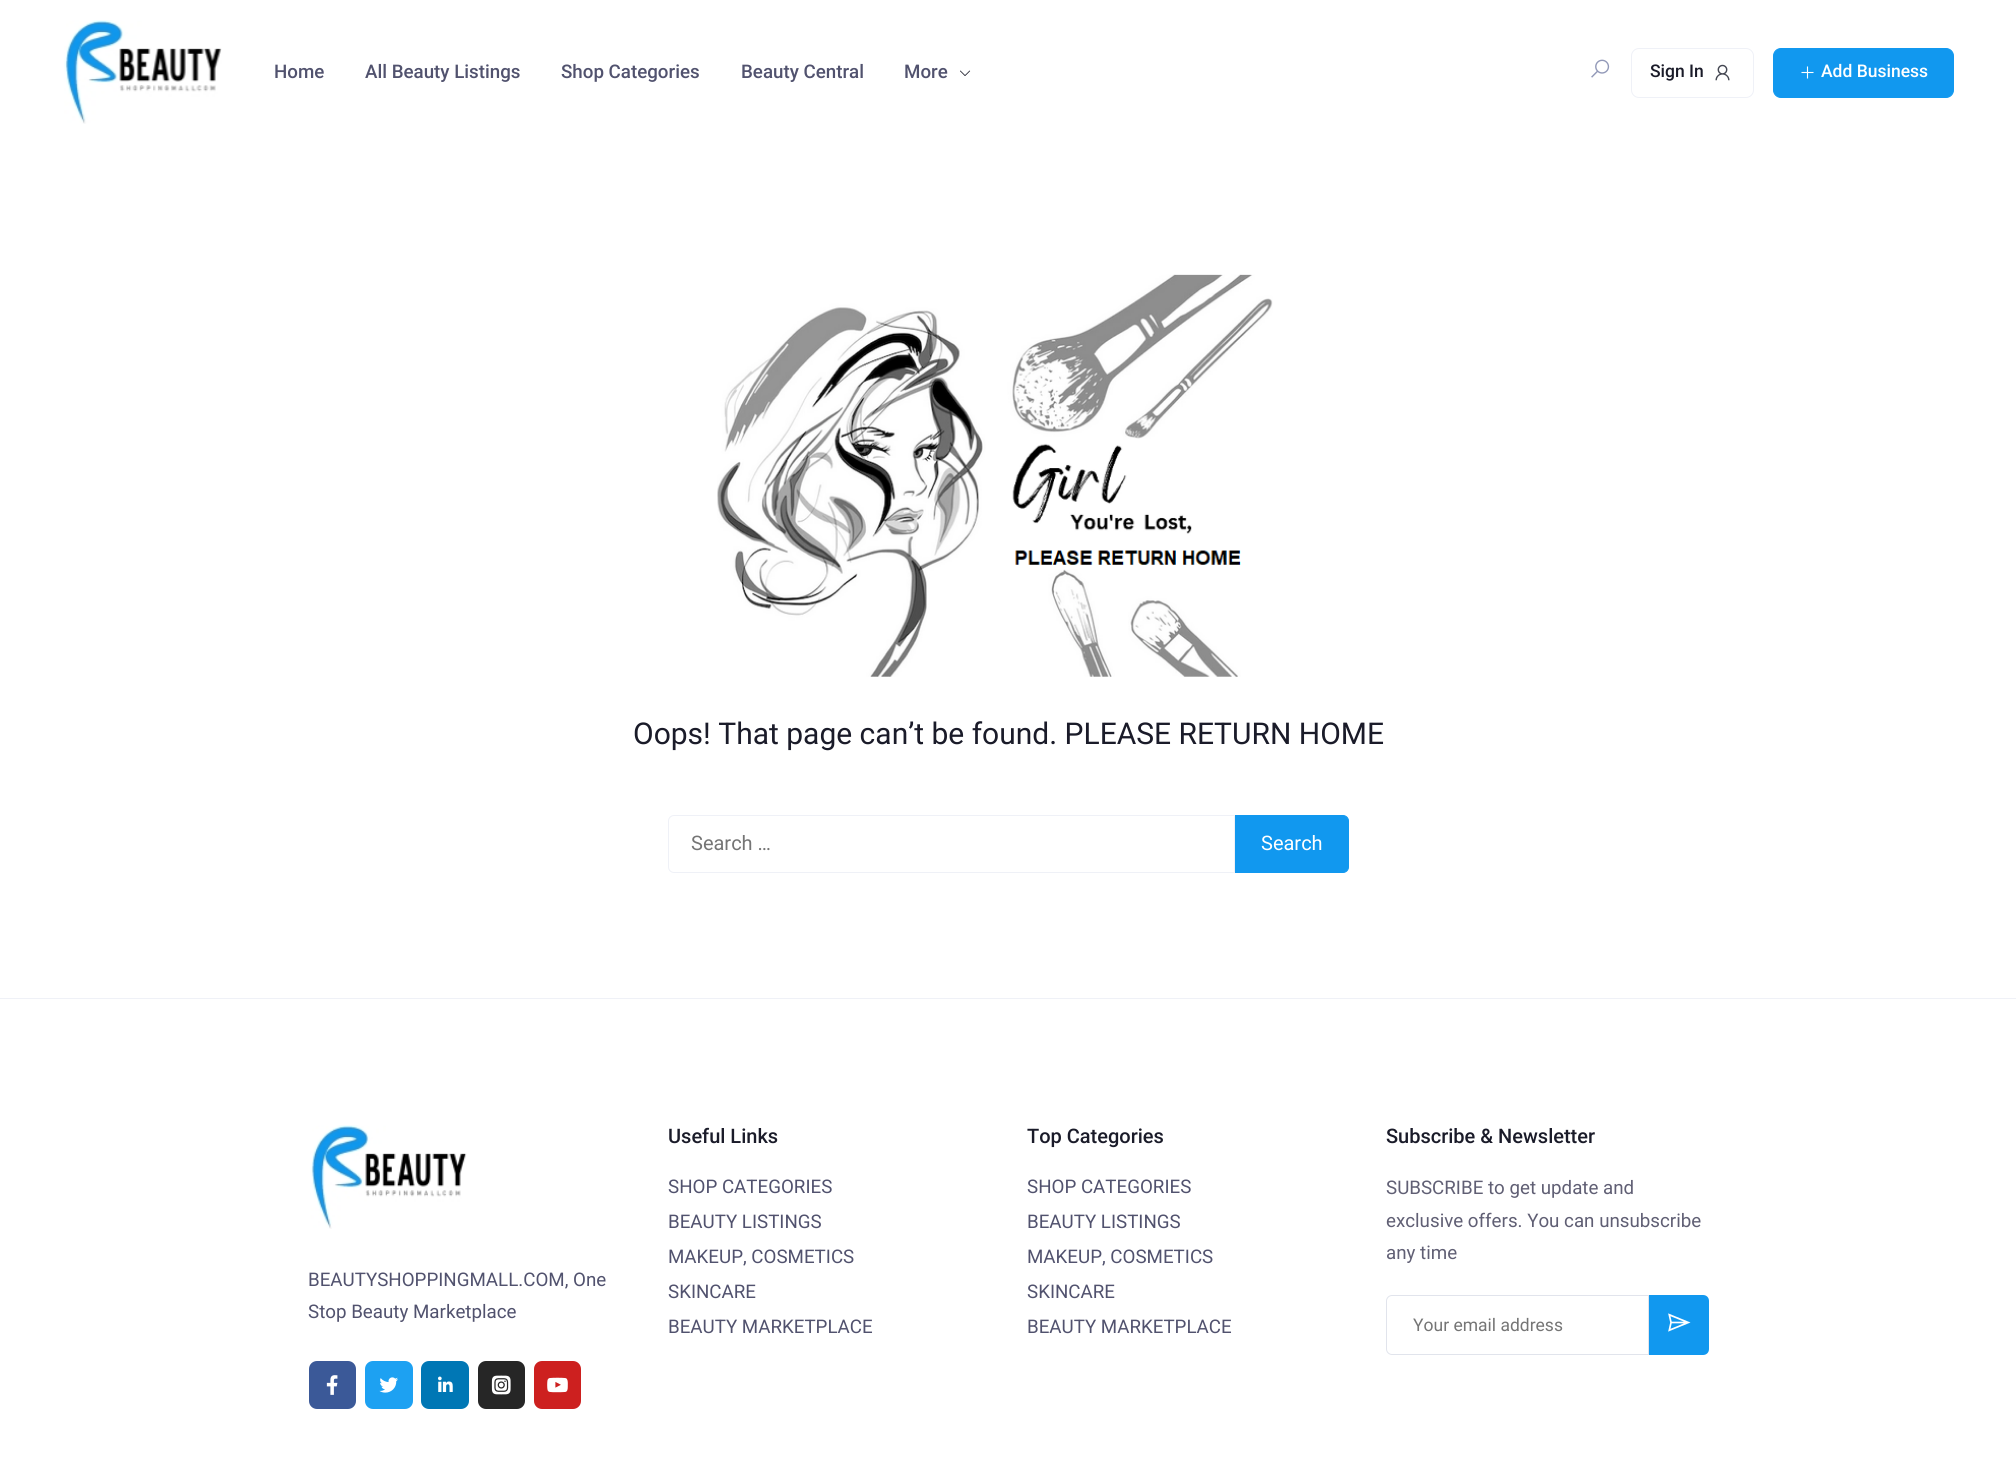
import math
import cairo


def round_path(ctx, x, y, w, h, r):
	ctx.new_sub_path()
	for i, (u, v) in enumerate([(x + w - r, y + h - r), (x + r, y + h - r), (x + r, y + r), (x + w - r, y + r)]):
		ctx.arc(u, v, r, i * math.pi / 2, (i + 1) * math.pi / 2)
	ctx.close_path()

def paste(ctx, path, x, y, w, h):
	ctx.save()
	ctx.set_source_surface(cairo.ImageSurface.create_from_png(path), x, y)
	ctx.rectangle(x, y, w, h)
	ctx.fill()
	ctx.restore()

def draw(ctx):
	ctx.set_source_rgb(1, 1, 1)
	ctx.paint()
	paste(ctx, 'media/1.png', 64, 20, 158, 104)
	ctx.select_font_face('Roboto Medium')
	ctx.set_font_size(18.75)
	ctx.set_source_rgb(0.318, 0.322, 0.431)
	for x, y, s in [
		(274, 78, 'Home'),
		(365, 78, 'All Beauty Listings'),
		(561, 78, 'Shop Categories'),
		(741, 78, 'Beauty Central'),
		(904, 78, 'More'),
	]:
		ctx.move_to(x, y)
		ctx.show_text(s)
	paste(ctx, 'media/2.png', 960, 70, 11, 6)
	paste(ctx, 'media/3.png', 1591, 59, 19, 19)
	round_path(ctx, 1631.5, 48.5, 122, 49, 7.5)
	ctx.set_source_rgb(0.937, 0.945, 0.965)
	ctx.set_line_width(1)
	ctx.stroke()
	ctx.set_font_size(17.5)
	ctx.set_source_rgb(0.102, 0.106, 0.161)
	ctx.move_to(1650, 77)
	ctx.show_text('Sign In')
	paste(ctx, 'media/4.png', 1715, 64, 15, 17)
	ctx.set_source_rgb(0.067, 0.596, 0.937)
	round_path(ctx, 1773.5, 48.5, 180, 49, 7.5)
	ctx.fill_preserve()
	ctx.stroke()
	paste(ctx, 'media/5.png', 1801, 66, 13, 13)
	ctx.set_source_rgb(1, 1, 1)
	ctx.move_to(1821, 77)
	ctx.show_text('Add Business')
	paste(ctx, 'media/6.png', 717, 274, 556, 403)
	ctx.select_font_face('Roboto')
	ctx.set_font_size(30)
	ctx.set_source_rgb(0.102, 0.106, 0.161)
	ctx.move_to(633, 744)
	ctx.show_text('Oops! That page can’t be found. PLEASE RETURN HOME')
	ctx.new_path()
	ctx.move_to(674, 815.5)
	ctx.line_to(1234.5, 815.5)
	ctx.line_to(1234.5, 872.5)
	ctx.line_to(674, 872.5)
	ctx.curve_to(671, 872.5, 668.5, 870, 668.5, 867)
	ctx.line_to(668.5, 821)
	ctx.curve_to(668.5, 818, 671, 815.5, 674, 815.5)
	ctx.close_path()
	ctx.set_source_rgb(0.937, 0.945, 0.965)
	ctx.stroke()
	ctx.set_font_size(20)
	ctx.set_source_rgb(0.459, 0.459, 0.459)
	ctx.move_to(691, 850)
	ctx.show_text('Search …')
	ctx.set_source_rgb(0.067, 0.596, 0.937)
	ctx.new_path()
	ctx.move_to(1235.5, 815.5)
	ctx.line_to(1343, 815.5)
	ctx.curve_to(1346, 815.5, 1348.5, 818, 1348.5, 821)
	ctx.line_to(1348.5, 867)
	ctx.curve_to(1348.5, 870, 1346, 872.5, 1343, 872.5)
	ctx.line_to(1235.5, 872.5)
	ctx.close_path()
	ctx.fill_preserve()
	ctx.stroke()
	ctx.set_source_rgb(1, 1, 1)
	ctx.move_to(1261, 850)
	ctx.show_text('Search')
	ctx.set_source_rgb(0.937, 0.945, 0.965)
	ctx.rectangle(0, 998, 2016, 1)
	ctx.fill()
	paste(ctx, 'media/7.png', 310, 1125, 157, 104)
	ctx.set_font_size(18.75)
	ctx.set_source_rgb(0.318, 0.322, 0.431)
	ctx.move_to(308, 1286)
	ctx.show_text('BEAUTYSHOPPINGMALL.COM, One')
	ctx.move_to(308, 1318)
	ctx.show_text('Stop Beauty Marketplace')
	ctx.set_source_rgb(0.231, 0.349, 0.596)
	round_path(ctx, 309, 1361, 47, 48, 8)
	ctx.fill()
	paste(ctx, 'media/8.png', 326, 1375, 12, 20)
	ctx.set_source_rgb(0.114, 0.631, 0.949)
	round_path(ctx, 365, 1361, 48, 48, 8)
	ctx.fill()
	paste(ctx, 'media/9.png', 379, 1377, 19, 16)
	ctx.set_source_rgb(0, 0.467, 0.71)
	round_path(ctx, 421, 1361, 48, 48, 8)
	ctx.fill()
	paste(ctx, 'media/10.png', 438, 1376, 15, 16)
	ctx.set_source_rgb(0.149, 0.149, 0.149)
	round_path(ctx, 478, 1361, 47, 48, 8)
	ctx.fill()
	paste(ctx, 'media/11.png', 491, 1375, 20, 20)
	ctx.set_source_rgb(0.804, 0.125, 0.122)
	round_path(ctx, 534, 1361, 47, 48, 8)
	ctx.fill()
	paste(ctx, 'media/12.png', 547, 1377, 21, 16)
	ctx.select_font_face('Roboto Medium')
	ctx.set_font_size(20)
	ctx.set_source_rgb(0.102, 0.106, 0.161)
	ctx.move_to(668, 1143)
	ctx.show_text('Useful Links')
	ctx.select_font_face('Roboto')
	ctx.set_font_size(18.75)
	ctx.set_source_rgb(0.318, 0.322, 0.431)
	for x, y, s in [
		(668, 1193, 'SHOP CATEGORIES'),
		(668, 1228, 'BEAUTY LISTINGS'),
		(668, 1263, 'MAKEUP, COSMETICS'),
		(668, 1298, 'SKINCARE'),
		(668, 1333, 'BEAUTY MARKETPLACE'),
	]:
		ctx.move_to(x, y)
		ctx.show_text(s)
	ctx.select_font_face('Roboto Medium')
	ctx.set_font_size(20)
	ctx.set_source_rgb(0.102, 0.106, 0.161)
	ctx.move_to(1027, 1143)
	ctx.show_text('Top Categories')
	ctx.select_font_face('Roboto')
	ctx.set_font_size(18.75)
	ctx.set_source_rgb(0.318, 0.322, 0.431)
	for x, y, s in [
		(1027, 1193, 'SHOP CATEGORIES'),
		(1027, 1228, 'BEAUTY LISTINGS'),
		(1027, 1263, 'MAKEUP, COSMETICS'),
		(1027, 1298, 'SKINCARE'),
		(1027, 1333, 'BEAUTY MARKETPLACE'),
	]:
		ctx.move_to(x, y)
		ctx.show_text(s)
	ctx.select_font_face('Roboto Medium')
	ctx.set_font_size(20)
	ctx.set_source_rgb(0.102, 0.106, 0.161)
	ctx.move_to(1386, 1143)
	ctx.show_text('Subscribe & Newsletter')
	ctx.select_font_face('Roboto')
	ctx.set_font_size(18.75)
	ctx.set_source_rgb(0.376, 0.373, 0.455)
	for x, y, s in [
		(1386, 1194, 'SUBSCRIBE to get update and'),
		(1386, 1227, 'exclusive offers. You can unsubscribe'),
		(1386, 1259, 'any time'),
	]:
		ctx.move_to(x, y)
		ctx.show_text(s)
	ctx.new_path()
	ctx.move_to(1392, 1295.5)
	ctx.line_to(1648.5, 1295.5)
	ctx.line_to(1648.5, 1354.5)
	ctx.line_to(1392, 1354.5)
	ctx.curve_to(1389, 1354.5, 1386.5, 1352, 1386.5, 1349)
	ctx.line_to(1386.5, 1301)
	ctx.curve_to(1386.5, 1298, 1389, 1295.5, 1392, 1295.5)
	ctx.close_path()
	ctx.set_source_rgb(0.882, 0.894, 0.925)
	ctx.stroke()
	ctx.set_font_size(17.5)
	ctx.set_source_rgb(0.459, 0.459, 0.459)
	ctx.move_to(1413, 1331)
	ctx.show_text('Your email address')
	ctx.set_source_rgb(0.067, 0.596, 0.937)
	ctx.new_path()
	ctx.move_to(1649, 1295)
	ctx.line_to(1703, 1295)
	ctx.curve_to(1706.5, 1295, 1709, 1297.5, 1709, 1301)
	ctx.line_to(1709, 1349)
	ctx.curve_to(1709, 1352.5, 1706.5, 1355, 1703, 1355)
	ctx.line_to(1649, 1355)
	ctx.close_path()
	ctx.fill()
	paste(ctx, 'media/13.png', 1668, 1313, 23, 19)


surface = cairo.ImageSurface(cairo.FORMAT_RGB24, 2016, 1475)
ctx = cairo.Context(surface)
options = cairo.FontOptions()
options.set_hint_metrics(cairo.HINT_METRICS_OFF)
options.set_hint_style(cairo.HINT_STYLE_NONE)
ctx.set_font_options(options)
ctx.set_miter_limit(4)
draw(ctx)
surface.write_to_png('image.png')
